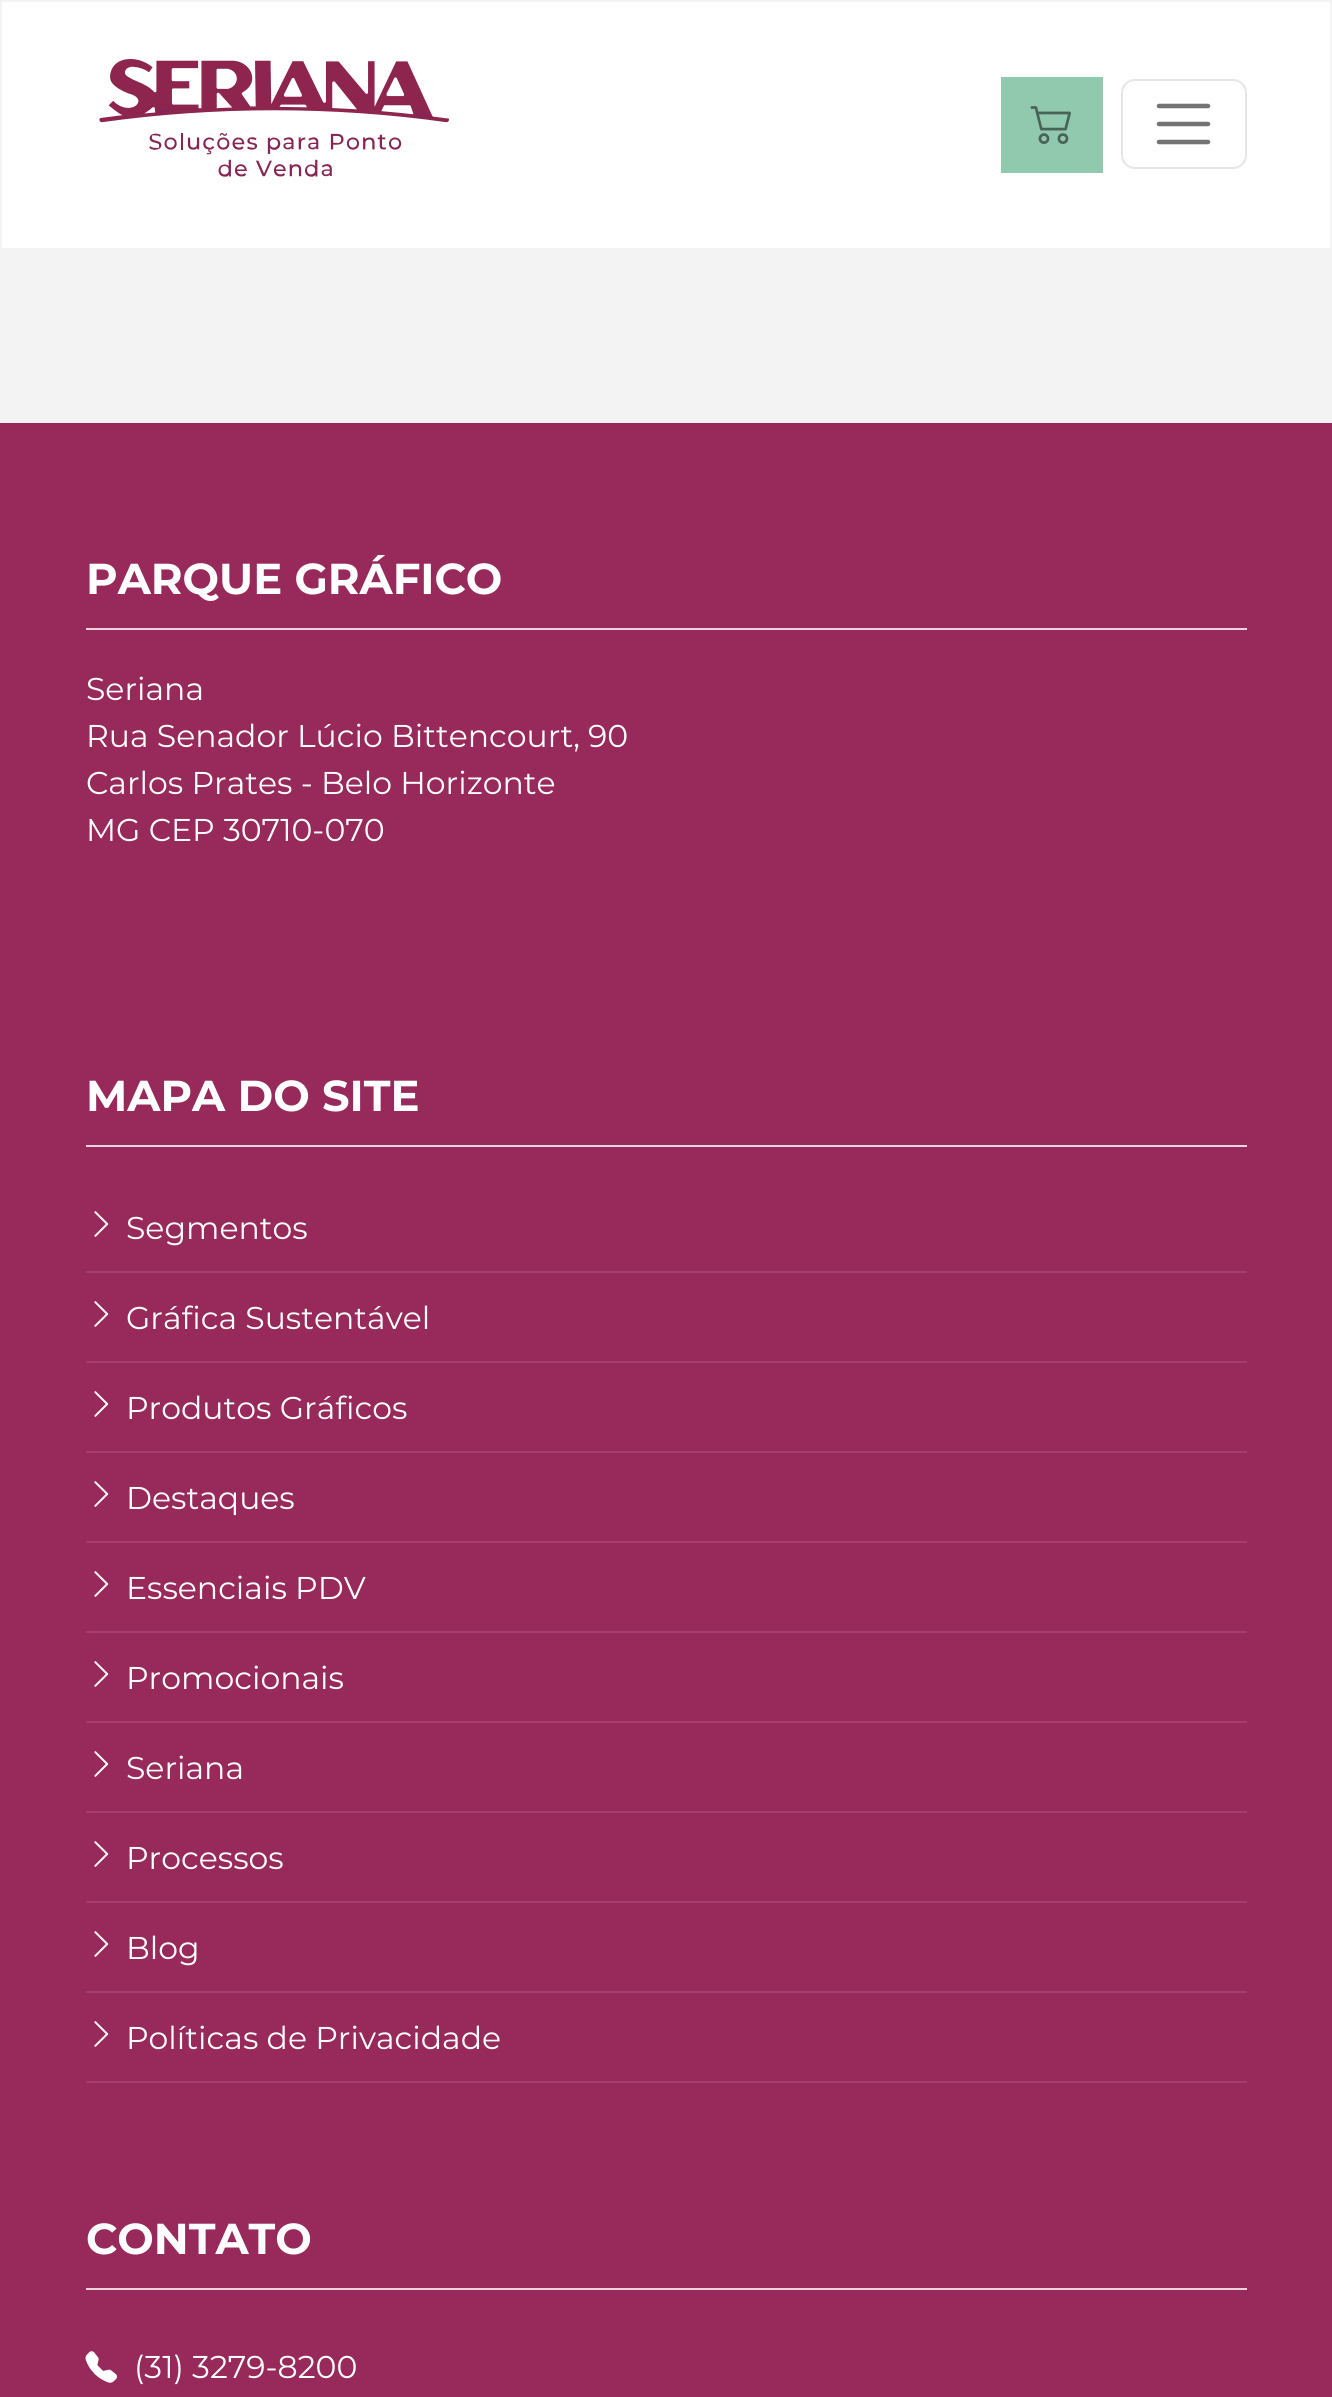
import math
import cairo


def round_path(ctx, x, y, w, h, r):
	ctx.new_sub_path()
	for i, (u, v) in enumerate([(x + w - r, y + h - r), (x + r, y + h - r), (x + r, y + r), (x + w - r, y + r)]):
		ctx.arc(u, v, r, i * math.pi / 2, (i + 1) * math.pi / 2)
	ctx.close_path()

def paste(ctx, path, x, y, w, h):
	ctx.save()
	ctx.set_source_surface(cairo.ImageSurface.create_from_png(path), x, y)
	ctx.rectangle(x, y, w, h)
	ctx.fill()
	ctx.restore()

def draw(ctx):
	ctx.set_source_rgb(0.953, 0.953, 0.953)
	ctx.paint()
	ctx.set_source_rgb(1, 1, 1)
	ctx.rectangle(2, 2, 1328, 246)
	ctx.fill()
	paste(ctx, 'media/1.png', 99, 59, 350, 118)
	ctx.set_source_rgb(0.569, 0.788, 0.682)
	ctx.rectangle(1001, 77, 102, 96)
	ctx.fill()
	paste(ctx, 'media/2.png', 1030, 106, 41, 38)
	round_path(ctx, 1122, 80, 124, 88, 13)
	ctx.set_source_rgb(0.902, 0.902, 0.902)
	ctx.stroke()
	ctx.new_path()
	ctx.move_to(1159, 106)
	ctx.line_to(1208, 106)
	ctx.move_to(1159, 124)
	ctx.line_to(1208, 124)
	ctx.move_to(1159, 142)
	ctx.line_to(1208, 142)
	ctx.set_source_rgb(0.451, 0.451, 0.451)
	ctx.set_line_width(4.5)
	ctx.set_line_cap(cairo.LINE_CAP_ROUND)
	ctx.stroke()
	ctx.set_source_rgb(0.596, 0.165, 0.357)
	ctx.rectangle(0, 423, 1332, 1974)
	ctx.fill()
	ctx.set_source_rgb(0.918, 0.831, 0.871)
	ctx.rectangle(86, 628, 1161, 2)
	ctx.fill()
	ctx.select_font_face('Montserrat', cairo.FONT_SLANT_NORMAL, cairo.FONT_WEIGHT_BOLD)
	ctx.set_font_size(43.25)
	ctx.set_source_rgb(1, 1, 1)
	ctx.move_to(86, 594)
	ctx.show_text('PARQUE GRÁFICO')
	ctx.select_font_face('Montserrat')
	ctx.set_font_size(31.5)
	for x, y, s in [
		(86, 700, 'Seriana'),
		(86, 747, 'Rua Senador Lúcio Bittencourt, 90'),
		(86, 794, 'Carlos Prates - Belo Horizonte'),
		(86, 841, 'MG CEP 30710-070'),
	]:
		ctx.move_to(x, y)
		ctx.show_text(s)
	ctx.set_source_rgb(0.918, 0.831, 0.871)
	ctx.rectangle(86, 1145, 1161, 2)
	ctx.fill()
	ctx.select_font_face('Montserrat', cairo.FONT_SLANT_NORMAL, cairo.FONT_WEIGHT_BOLD)
	ctx.set_font_size(43.25)
	ctx.set_source_rgb(1, 1, 1)
	ctx.move_to(86, 1111)
	ctx.show_text('MAPA DO SITE')
	ctx.set_source_rgb(0.635, 0.247, 0.42)
	ctx.rectangle(86, 1271, 1161, 2)
	ctx.fill()
	paste(ctx, 'media/3.png', 94, 1211, 15, 26)
	ctx.select_font_face('Montserrat')
	ctx.set_font_size(31.5)
	ctx.set_source_rgb(1, 1, 1)
	ctx.move_to(126, 1239)
	ctx.show_text('Segmentos')
	ctx.set_source_rgb(0.635, 0.247, 0.42)
	ctx.rectangle(86, 1361, 1161, 2)
	ctx.fill()
	paste(ctx, 'media/3.png', 94, 1301, 15, 26)
	ctx.set_source_rgb(1, 1, 1)
	ctx.move_to(126, 1329)
	ctx.show_text('Gráfica Sustentável')
	ctx.set_source_rgb(0.635, 0.247, 0.42)
	ctx.rectangle(86, 1451, 1161, 2)
	ctx.fill()
	paste(ctx, 'media/3.png', 94, 1391, 15, 26)
	ctx.set_source_rgb(1, 1, 1)
	ctx.move_to(126, 1419)
	ctx.show_text('Produtos Gráficos')
	ctx.set_source_rgb(0.635, 0.247, 0.42)
	ctx.rectangle(86, 1541, 1161, 2)
	ctx.fill()
	paste(ctx, 'media/3.png', 94, 1481, 15, 26)
	ctx.set_source_rgb(1, 1, 1)
	ctx.move_to(126, 1509)
	ctx.show_text('Destaques')
	ctx.set_source_rgb(0.635, 0.247, 0.42)
	ctx.rectangle(86, 1631, 1161, 2)
	ctx.fill()
	paste(ctx, 'media/3.png', 94, 1571, 15, 26)
	ctx.set_source_rgb(1, 1, 1)
	ctx.move_to(126, 1599)
	ctx.show_text('Essenciais PDV')
	ctx.set_source_rgb(0.635, 0.247, 0.42)
	ctx.rectangle(86, 1721, 1161, 2)
	ctx.fill()
	paste(ctx, 'media/3.png', 94, 1661, 15, 26)
	ctx.set_source_rgb(1, 1, 1)
	ctx.move_to(126, 1689)
	ctx.show_text('Promocionais')
	ctx.set_source_rgb(0.635, 0.247, 0.42)
	ctx.rectangle(86, 1811, 1161, 2)
	ctx.fill()
	paste(ctx, 'media/3.png', 94, 1751, 15, 26)
	ctx.set_source_rgb(1, 1, 1)
	ctx.move_to(126, 1779)
	ctx.show_text('Seriana')
	ctx.set_source_rgb(0.635, 0.247, 0.42)
	ctx.rectangle(86, 1901, 1161, 2)
	ctx.fill()
	paste(ctx, 'media/3.png', 94, 1841, 15, 26)
	ctx.set_source_rgb(1, 1, 1)
	ctx.move_to(126, 1869)
	ctx.show_text('Processos')
	ctx.set_source_rgb(0.635, 0.247, 0.42)
	ctx.rectangle(86, 1991, 1161, 2)
	ctx.fill()
	paste(ctx, 'media/3.png', 94, 1931, 15, 26)
	ctx.set_source_rgb(1, 1, 1)
	ctx.move_to(126, 1959)
	ctx.show_text('Blog')
	ctx.set_source_rgb(0.635, 0.247, 0.42)
	ctx.rectangle(86, 2081, 1161, 2)
	ctx.fill()
	paste(ctx, 'media/3.png', 94, 2021, 15, 26)
	ctx.set_source_rgb(1, 1, 1)
	ctx.move_to(126, 2049)
	ctx.show_text('Políticas de Privacidade')
	ctx.set_source_rgb(0.918, 0.831, 0.871)
	ctx.rectangle(86, 2288, 1161, 2)
	ctx.fill()
	ctx.select_font_face('Montserrat', cairo.FONT_SLANT_NORMAL, cairo.FONT_WEIGHT_BOLD)
	ctx.set_font_size(43.25)
	ctx.set_source_rgb(1, 1, 1)
	ctx.move_to(86, 2254)
	ctx.show_text('CONTATO')
	paste(ctx, 'media/4.png', 85, 2351, 32, 32)
	ctx.select_font_face('Montserrat')
	ctx.set_font_size(31.5)
	ctx.move_to(134, 2378)
	ctx.show_text('(31) 3279-8200')


surface = cairo.ImageSurface(cairo.FORMAT_RGB24, 1332, 2397)
ctx = cairo.Context(surface)
options = cairo.FontOptions()
options.set_hint_metrics(cairo.HINT_METRICS_OFF)
options.set_hint_style(cairo.HINT_STYLE_NONE)
ctx.set_font_options(options)
ctx.set_miter_limit(4)
draw(ctx)
surface.write_to_png('image.png')
